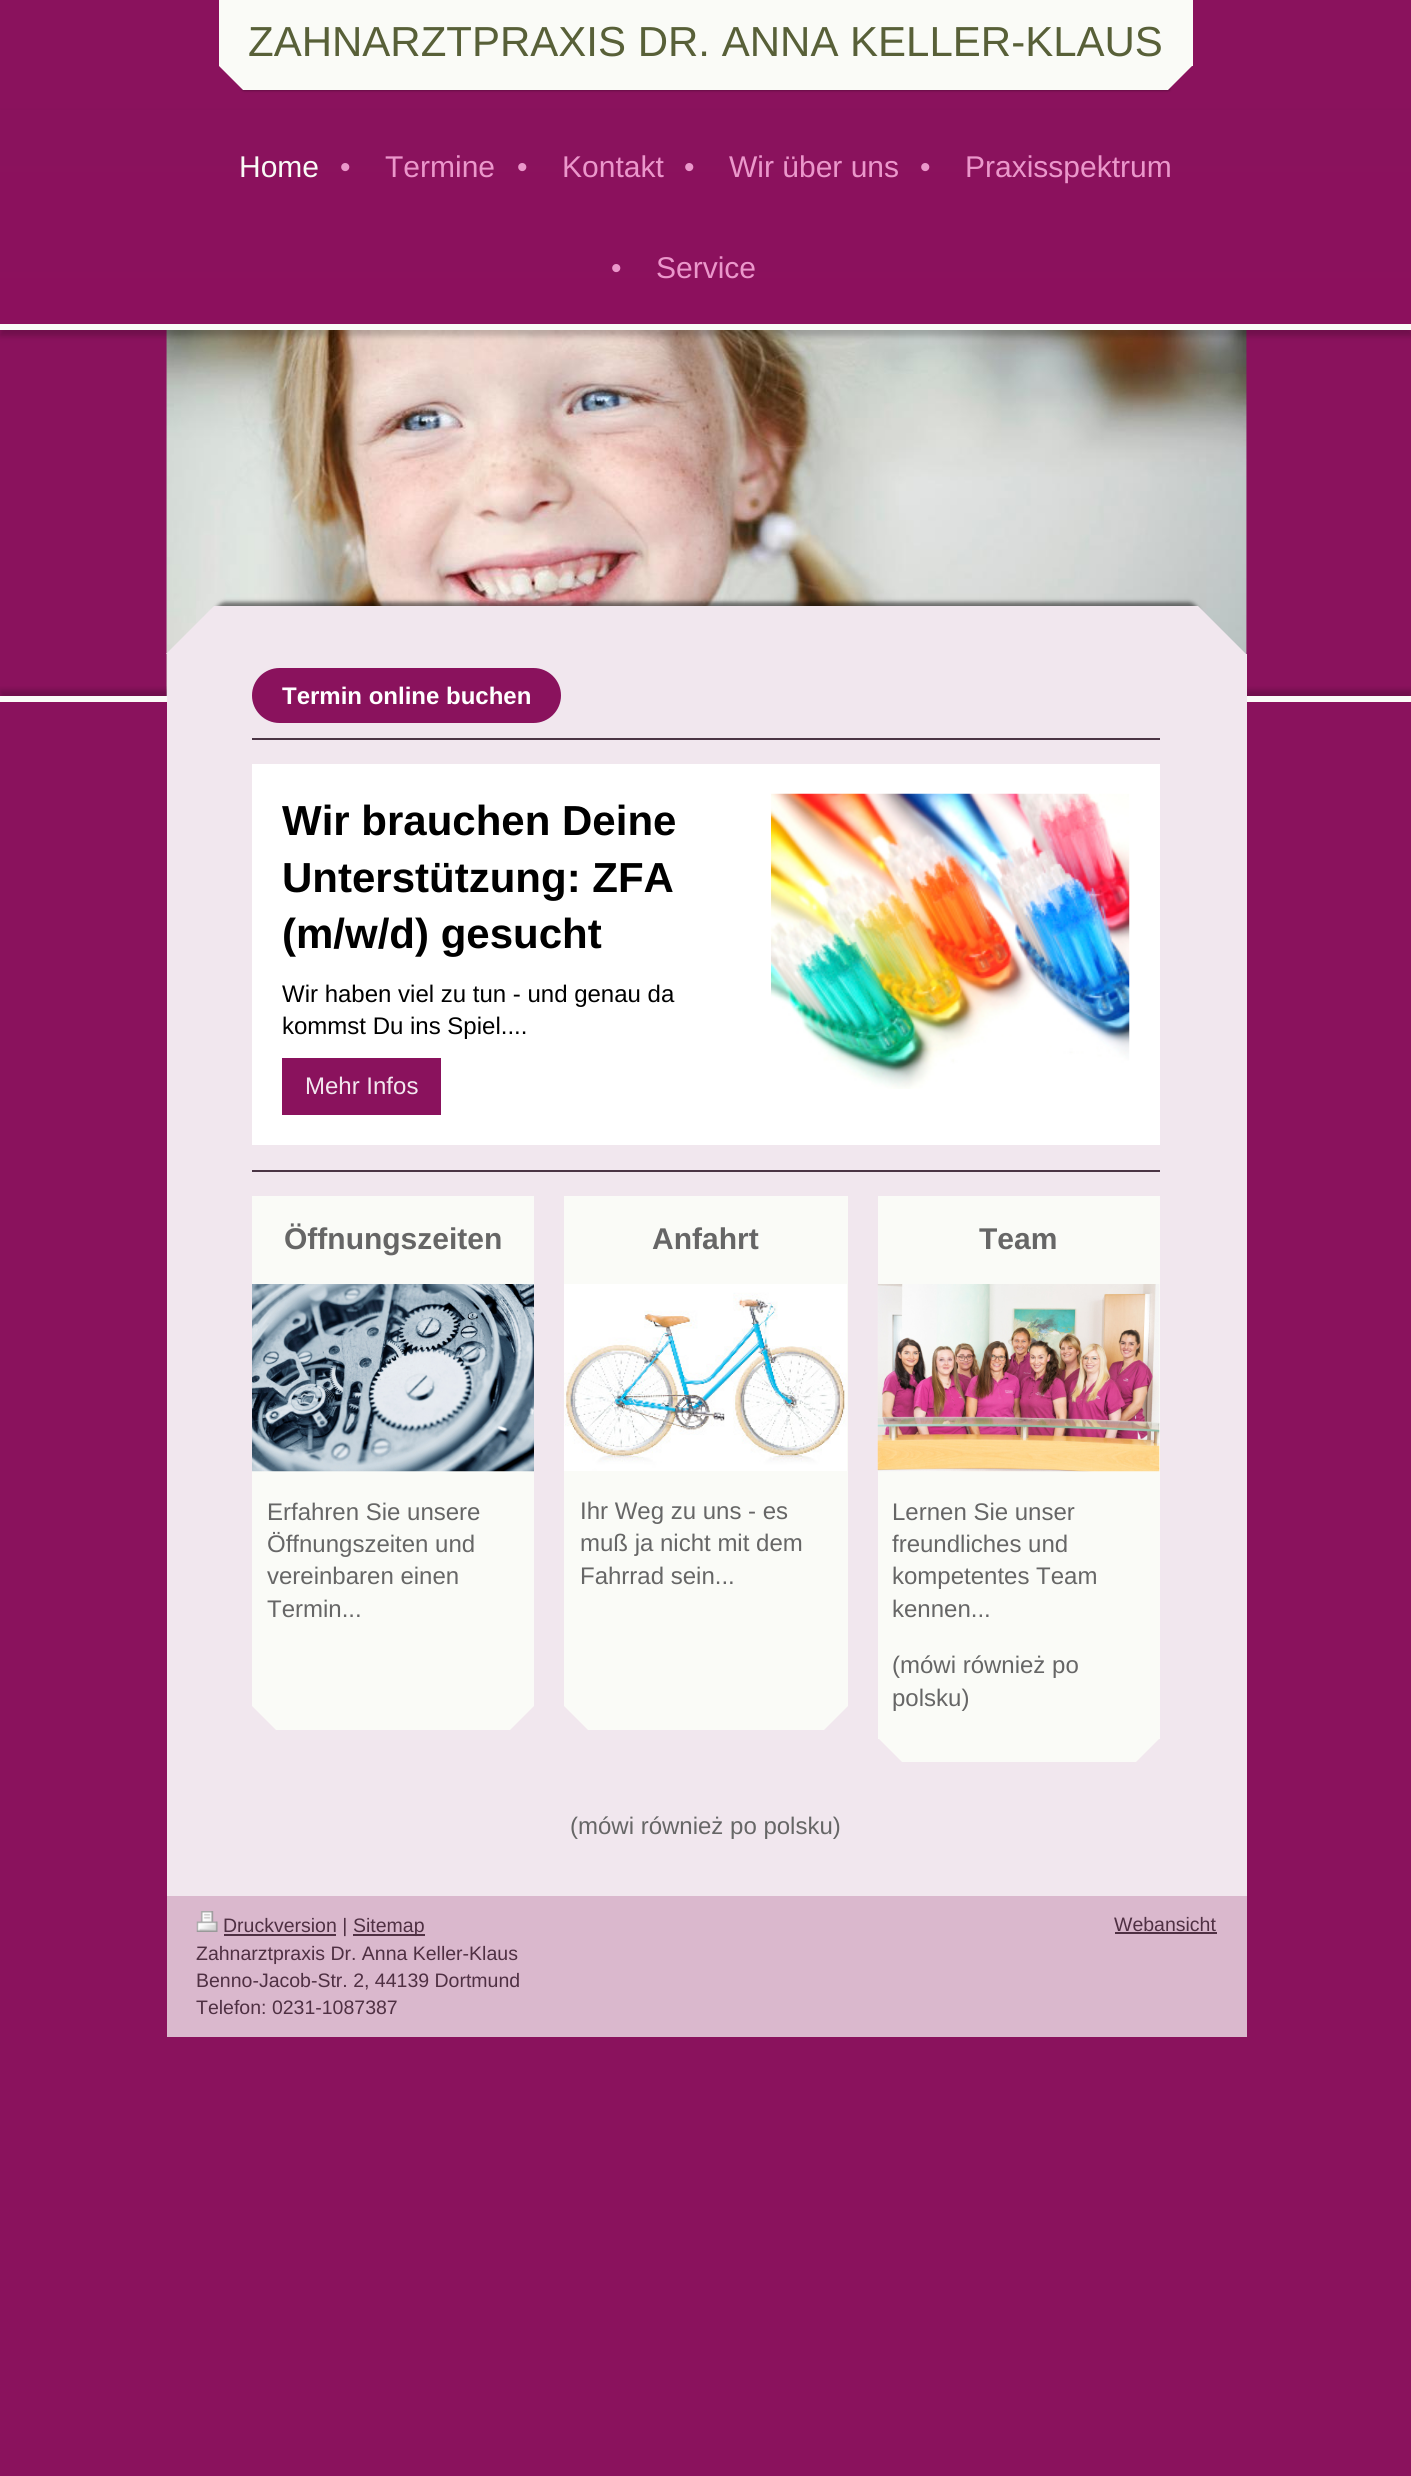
import math
import cairo


def round_path(ctx, x, y, w, h, r):
	ctx.new_sub_path()
	for i, (u, v) in enumerate([(x + w - r, y + h - r), (x + r, y + h - r), (x + r, y + r), (x + w - r, y + r)]):
		ctx.arc(u, v, r, i * math.pi / 2, (i + 1) * math.pi / 2)
	ctx.close_path()

def blur_box(ctx, x, y, w, h, r, blur, alpha):
	ctx.push_group_with_content(cairo.CONTENT_ALPHA)
	ctx.set_operator(cairo.OPERATOR_SOURCE)
	for i in range(15, -16, -2):
		e = blur * i / 6
		if min(w, h) + 2 * e > 0:
			ctx.set_source_rgba(0, 0, 0, alpha * math.erfc((i - 1) / 8.5) / 2)
			round_path(ctx, x - e, y - e, w + 2 * e, h + 2 * e, max(0, min(r + e + blur * .6, min(w, h) / 2 + e)))
			ctx.fill()
	ctx.mask(ctx.pop_group())

def paste(ctx, path, x, y, w, h):
	ctx.save()
	ctx.set_source_surface(cairo.ImageSurface.create_from_png(path), x, y)
	ctx.rectangle(x, y, w, h)
	ctx.fill()
	ctx.restore()

def draw(ctx):
	ctx.set_source_rgb(0.541, 0.071, 0.365)
	ctx.paint()
	ctx.set_source_rgb(0, 0, 0)
	blur_box(ctx, 243, 66, 926, 24, 0, 1.5, 0.5)
	ctx.set_source_rgb(0.98, 0.984, 0.965)
	ctx.rectangle(219, 0, 974, 66)
	ctx.fill()
	ctx.select_font_face('Liberation Sans')
	ctx.set_font_size(42)
	ctx.set_source_rgb(0.345, 0.376, 0.22)
	ctx.move_to(248, 56)
	ctx.show_text('ZAHNARZTPRAXIS DR. ANNA KELLER-KLAUS')
	ctx.set_source_rgb(0.98, 0.984, 0.965)
	ctx.new_path()
	ctx.move_to(219, 66)
	ctx.line_to(1192, 66)
	ctx.line_to(1168, 90)
	ctx.line_to(243, 90)
	ctx.close_path()
	ctx.fill()
	paste(ctx, 'media/1.png', 166, 330, 1081, 366)
	paste(ctx, 'media/2.png', 166, 330, 1081, 366)
	ctx.set_source_rgb(0, 0, 0)
	blur_box(ctx, 0, 114, 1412, 222, 0, 3, 0.2)
	gradient = cairo.LinearGradient(706, 108, 706, 324)
	gradient.add_color_stop_rgba(0, 0.541, 0.071, 0.365, 1)
	gradient.add_color_stop_rgba(1, 0.549, 0.063, 0.365, 1)
	ctx.set_source(gradient)
	ctx.rectangle(0, 110, 1411, 214)
	ctx.fill()
	ctx.set_source_rgb(0.98, 0.984, 0.965)
	ctx.rectangle(0, 324, 1411, 6)
	ctx.fill()
	ctx.set_font_size(30)
	ctx.move_to(239, 177)
	ctx.show_text('Home')
	ctx.set_source_rgb(0.918, 0.592, 0.796)
	for x, y, s in [
		(340, 177, '•'),
		(385, 177, 'Termine'),
		(517, 177, '•'),
		(562, 177, 'Kontakt'),
		(684, 177, '•'),
		(729, 177, 'Wir über uns'),
		(920, 177, '•'),
		(965, 177, 'Praxisspektrum'),
		(611, 278, '•'),
		(656, 278, 'Service'),
	]:
		ctx.move_to(x, y)
		ctx.show_text(s)
	ctx.save()
	ctx.rectangle(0, 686, 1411, 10)
	ctx.clip()
	ctx.set_source_rgb(0, 0, 0)
	blur_box(ctx, 0, 690, 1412, 1200, 0, 3, 0.2)
	ctx.restore()
	ctx.set_source_rgb(0.98, 0.984, 0.965)
	ctx.rectangle(0, 696, 1411, 6)
	ctx.fill()
	ctx.set_source_rgb(0.945, 0.906, 0.933)
	ctx.rectangle(167, 654, 1080, 1242)
	ctx.fill()
	ctx.set_source_rgb(0, 0, 0)
	blur_box(ctx, 215, 602, 984, 24, 12, 2, 0.5)
	ctx.set_source_rgb(0.945, 0.906, 0.933)
	ctx.new_path()
	ctx.move_to(1246, 654)
	ctx.line_to(166, 654)
	ctx.line_to(214, 606)
	ctx.line_to(1198, 606)
	ctx.close_path()
	ctx.fill()
	ctx.set_source_rgb(0.541, 0.071, 0.365)
	round_path(ctx, 252, 668, 309, 55, 27.5)
	ctx.fill()
	ctx.select_font_face('Liberation Sans', cairo.FONT_SLANT_NORMAL, cairo.FONT_WEIGHT_BOLD)
	ctx.set_font_size(24)
	ctx.set_source_rgb(1, 1, 1)
	ctx.move_to(282, 704)
	ctx.show_text('Termin online buchen')
	ctx.set_source_rgb(0.294, 0.208, 0.267)
	ctx.rectangle(252, 738, 908, 2)
	ctx.fill()
	ctx.set_source_rgb(1, 1, 1)
	ctx.rectangle(252, 764, 908, 381)
	ctx.fill()
	ctx.set_font_size(42)
	ctx.set_source_rgb(0, 0, 0)
	for x, y, s in [
		(282, 835, 'Wir brauchen Deine'),
		(282, 892, 'Unterstützung: ZFA'),
		(282, 948, '(m/w/d) gesucht'),
	]:
		ctx.move_to(x, y)
		ctx.show_text(s)
	ctx.select_font_face('Liberation Sans')
	ctx.set_font_size(24)
	ctx.move_to(282, 1002)
	ctx.show_text('Wir haben viel zu tun - und genau da')
	ctx.move_to(282, 1034)
	ctx.show_text('kommst Du ins Spiel....')
	ctx.set_source_rgb(0.541, 0.071, 0.365)
	ctx.rectangle(282, 1058, 159, 57)
	ctx.fill()
	ctx.set_source_rgb(0.953, 0.906, 0.937)
	ctx.move_to(305, 1094)
	ctx.show_text('Mehr Infos')
	paste(ctx, 'media/3.png', 771, 793, 359, 296)
	ctx.set_source_rgb(0.294, 0.208, 0.267)
	ctx.rectangle(252, 1170, 908, 2)
	ctx.fill()
	ctx.set_source_rgb(0.98, 0.984, 0.965)
	ctx.rectangle(252, 1196, 282, 510)
	ctx.fill()
	ctx.select_font_face('Liberation Sans', cairo.FONT_SLANT_NORMAL, cairo.FONT_WEIGHT_BOLD)
	ctx.set_font_size(30)
	ctx.set_source_rgb(0.4, 0.4, 0.4)
	ctx.move_to(284, 1249)
	ctx.show_text('Öffnungszeiten')
	paste(ctx, 'media/4.png', 252, 1284, 282, 188)
	ctx.select_font_face('Liberation Sans')
	ctx.set_font_size(24)
	for x, y, s in [
		(267, 1520, 'Erfahren Sie unsere'),
		(267, 1552, 'Öffnungszeiten und'),
		(267, 1584, 'vereinbaren einen'),
		(267, 1617, 'Termin...'),
	]:
		ctx.move_to(x, y)
		ctx.show_text(s)
	ctx.set_source_rgb(0.98, 0.984, 0.965)
	ctx.new_path()
	ctx.move_to(252, 1706)
	ctx.line_to(534, 1706)
	ctx.line_to(510, 1730)
	ctx.line_to(276, 1730)
	ctx.close_path()
	ctx.fill()
	ctx.rectangle(564, 1196, 284, 510)
	ctx.fill()
	ctx.select_font_face('Liberation Sans', cairo.FONT_SLANT_NORMAL, cairo.FONT_WEIGHT_BOLD)
	ctx.set_font_size(30)
	ctx.set_source_rgb(0.4, 0.4, 0.4)
	ctx.move_to(652, 1249)
	ctx.show_text('Anfahrt')
	paste(ctx, 'media/5.png', 564, 1284, 283, 187)
	ctx.select_font_face('Liberation Sans')
	ctx.set_font_size(24)
	for x, y, s in [
		(580, 1519, 'Ihr Weg zu uns - es'),
		(580, 1551, 'muß ja nicht mit dem'),
		(580, 1584, 'Fahrrad sein...'),
	]:
		ctx.move_to(x, y)
		ctx.show_text(s)
	ctx.set_source_rgb(0.98, 0.984, 0.965)
	ctx.new_path()
	ctx.move_to(564, 1706)
	ctx.line_to(848, 1706)
	ctx.line_to(824, 1730)
	ctx.line_to(588, 1730)
	ctx.close_path()
	ctx.fill()
	ctx.new_path()
	ctx.move_to(878, 1738)
	ctx.line_to(1160, 1738)
	ctx.line_to(1136, 1762)
	ctx.line_to(902, 1762)
	ctx.close_path()
	ctx.fill()
	ctx.rectangle(878, 1196, 282, 543)
	ctx.fill()
	ctx.select_font_face('Liberation Sans', cairo.FONT_SLANT_NORMAL, cairo.FONT_WEIGHT_BOLD)
	ctx.set_font_size(30)
	ctx.set_source_rgb(0.4, 0.4, 0.4)
	ctx.move_to(979, 1249)
	ctx.show_text('Team')
	paste(ctx, 'media/6.png', 877, 1284, 283, 188)
	ctx.select_font_face('Liberation Sans')
	ctx.set_font_size(24)
	for x, y, s in [
		(892, 1520, 'Lernen Sie unser'),
		(892, 1552, 'freundliches und'),
		(892, 1584, 'kompetentes Team'),
		(892, 1617, 'kennen...'),
		(892, 1673, '(mówi również po'),
		(892, 1706, 'polsku)'),
		(570, 1834, '(mówi również po polsku)'),
	]:
		ctx.move_to(x, y)
		ctx.show_text(s)
	ctx.set_source_rgb(0.855, 0.722, 0.804)
	ctx.rectangle(167, 1896, 1080, 141)
	ctx.fill()
	paste(ctx, 'media/7.png', 196, 1911, 22, 21)
	ctx.set_source_rgb(0.31, 0.188, 0.263)
	ctx.rectangle(224, 1934, 112, 2)
	ctx.fill()
	ctx.set_font_size(19.5)
	ctx.move_to(223, 1932)
	ctx.show_text('Druckversion |')
	ctx.rectangle(353, 1934, 72, 2)
	ctx.fill()
	for x, y, s in [
		(353, 1932, 'Sitemap'),
		(196, 1960, 'Zahnarztpraxis Dr. Anna Keller-Klaus'),
		(196, 1987, 'Benno-Jacob-Str. 2, 44139 Dortmund'),
		(196, 2014, 'Telefon: 0231-1087387'),
		(1114, 1931, 'Webansicht'),
	]:
		ctx.move_to(x, y)
		ctx.show_text(s)
	ctx.rectangle(1115, 1932, 102, 2)
	ctx.fill()


surface = cairo.ImageSurface(cairo.FORMAT_RGB24, 1411, 2476)
ctx = cairo.Context(surface)
options = cairo.FontOptions()
options.set_hint_metrics(cairo.HINT_METRICS_OFF)
options.set_hint_style(cairo.HINT_STYLE_NONE)
ctx.set_font_options(options)
ctx.set_miter_limit(4)
draw(ctx)
surface.write_to_png('image.png')
